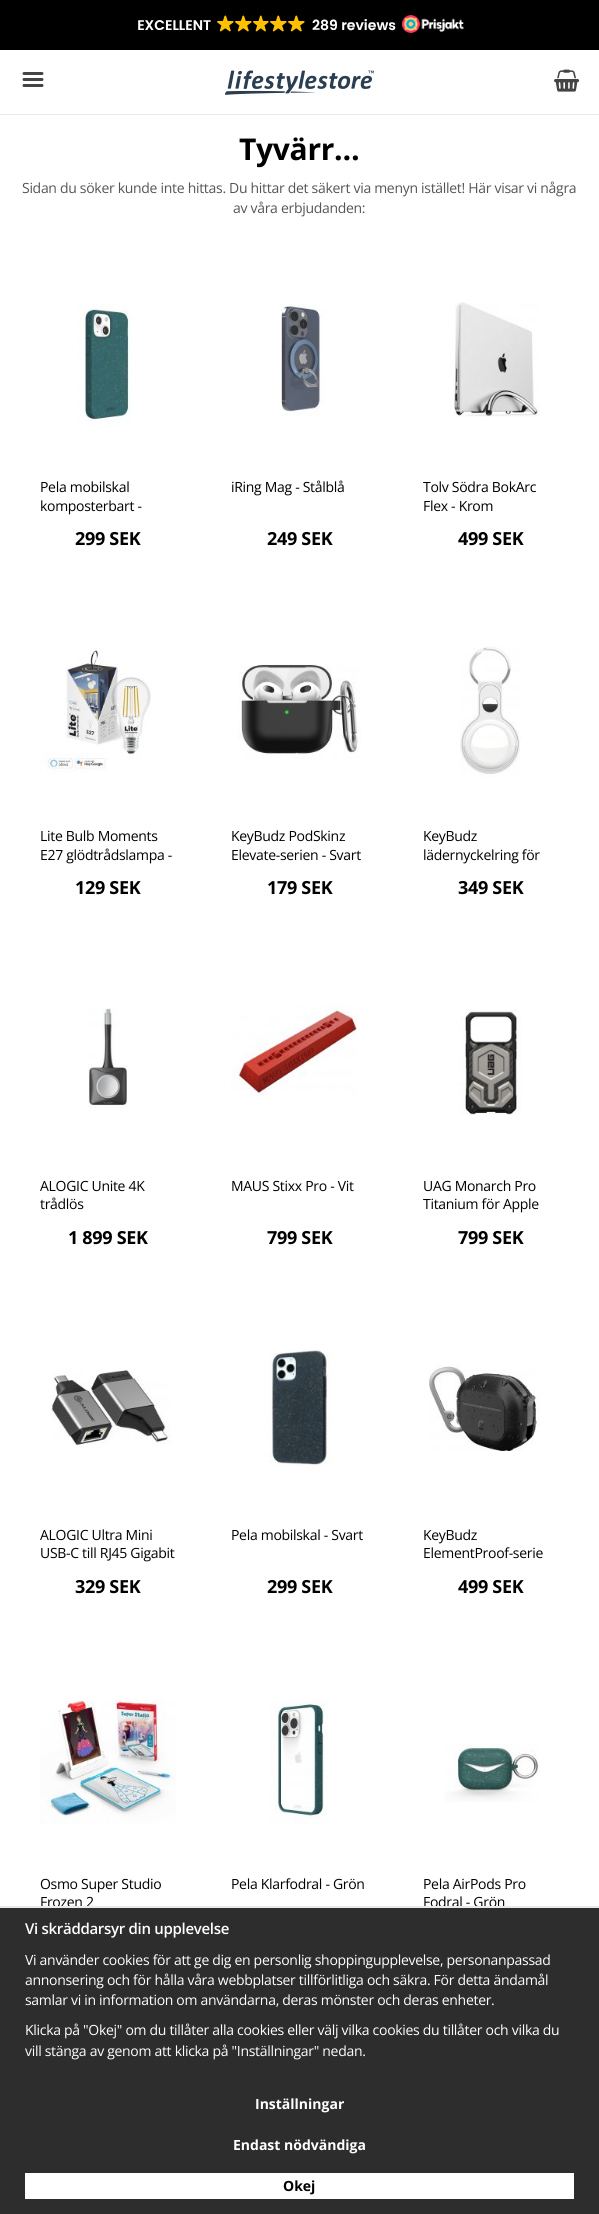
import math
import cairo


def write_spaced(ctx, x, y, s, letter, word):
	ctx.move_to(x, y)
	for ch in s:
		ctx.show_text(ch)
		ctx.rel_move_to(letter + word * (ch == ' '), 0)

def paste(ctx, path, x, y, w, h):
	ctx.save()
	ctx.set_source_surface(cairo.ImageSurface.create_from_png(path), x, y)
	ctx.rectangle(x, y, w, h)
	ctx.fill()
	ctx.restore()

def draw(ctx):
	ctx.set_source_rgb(1, 1, 1)
	ctx.paint()
	ctx.set_source_rgb(0, 0, 0)
	ctx.rectangle(0, 0, 599, 50)
	ctx.fill()
	paste(ctx, 'media/1.png', 138, 15, 327, 18)
	ctx.set_source_rgb(0.914, 0.914, 0.914)
	ctx.rectangle(0, 114, 599, 1)
	ctx.fill()
	paste(ctx, 'media/2.png', 22, 72, 22, 15)
	paste(ctx, 'media/3.png', 225, 70, 149, 25)
	paste(ctx, 'media/4.png', 554, 69, 26, 23)
	ctx.select_font_face('Open Sans', cairo.FONT_SLANT_NORMAL, cairo.FONT_WEIGHT_BOLD)
	ctx.set_font_size(30)
	ctx.set_source_rgb(0, 0, 0)
	write_spaced(ctx, 239, 160, 'Tyvärr…', -0.3, 0)
	ctx.select_font_face('Open Sans')
	ctx.set_font_size(14)
	ctx.set_source_rgb(0.333, 0.333, 0.333)
	write_spaced(ctx, 22, 193, 'Sidan du söker kunde inte hittas. Du hittar det säkert via menyn istället! Här visar vi några', -0.3, 0)
	write_spaced(ctx, 233, 213, 'av våra erbjudanden:', -0.3, 0)
	paste(ctx, 'media/5.png', 78, 303, 54, 123)
	ctx.set_source_rgb(0, 0, 0)
	write_spaced(ctx, 40, 492, 'Pela mobilskal', -0.3, 0)
	write_spaced(ctx, 40, 511, 'komposterbart -', -0.3, 0)
	ctx.select_font_face('Open Sans', cairo.FONT_SLANT_NORMAL, cairo.FONT_WEIGHT_BOLD)
	ctx.set_font_size(18)
	write_spaced(ctx, 75, 545, '299 SEK', -0.3, 0)
	paste(ctx, 'media/6.png', 281, 304, 44, 112)
	ctx.select_font_face('Open Sans')
	ctx.set_font_size(14)
	write_spaced(ctx, 231, 492, 'iRing Mag - Stålblå', -0.3, 0)
	ctx.select_font_face('Open Sans', cairo.FONT_SLANT_NORMAL, cairo.FONT_WEIGHT_BOLD)
	ctx.set_font_size(18)
	write_spaced(ctx, 267, 545, '249 SEK', -0.3, 0)
	paste(ctx, 'media/7.png', 454, 302, 86, 115)
	ctx.select_font_face('Open Sans')
	ctx.set_font_size(14)
	write_spaced(ctx, 423, 492, 'Tolv Södra BokArc', -0.3, 0)
	write_spaced(ctx, 423, 511, 'Flex - Krom', -0.3, 0)
	ctx.select_font_face('Open Sans', cairo.FONT_SLANT_NORMAL, cairo.FONT_WEIGHT_BOLD)
	ctx.set_font_size(18)
	write_spaced(ctx, 458, 545, '499 SEK', -0.3, 0)
	paste(ctx, 'media/8.png', 40, 648, 111, 124)
	ctx.select_font_face('Open Sans')
	ctx.set_font_size(14)
	write_spaced(ctx, 40, 841, 'Lite Bulb Moments', -0.3, 0)
	write_spaced(ctx, 40, 860, 'E27 glödtrådslampa -', -0.3, 0)
	ctx.select_font_face('Open Sans', cairo.FONT_SLANT_NORMAL, cairo.FONT_WEIGHT_BOLD)
	ctx.set_font_size(18)
	write_spaced(ctx, 75, 894, '129 SEK', -0.3, 0)
	paste(ctx, 'media/9.png', 238, 664, 123, 95)
	ctx.select_font_face('Open Sans')
	ctx.set_font_size(14)
	write_spaced(ctx, 231, 841, 'KeyBudz PodSkinz', -0.3, 0)
	write_spaced(ctx, 231, 860, 'Elevate-serien - Svart', -0.3, 0)
	ctx.select_font_face('Open Sans', cairo.FONT_SLANT_NORMAL, cairo.FONT_WEIGHT_BOLD)
	ctx.set_font_size(18)
	write_spaced(ctx, 267, 894, '179 SEK', -0.3, 0)
	paste(ctx, 'media/10.png', 460, 646, 61, 131)
	ctx.select_font_face('Open Sans')
	ctx.set_font_size(14)
	write_spaced(ctx, 423, 841, 'KeyBudz', -0.3, 0)
	write_spaced(ctx, 423, 860, 'lädernyckelring för', -0.3, 0)
	ctx.select_font_face('Open Sans', cairo.FONT_SLANT_NORMAL, cairo.FONT_WEIGHT_BOLD)
	ctx.set_font_size(18)
	write_spaced(ctx, 458, 894, '349 SEK', -0.3, 0)
	paste(ctx, 'media/11.png', 88, 1008, 39, 100)
	ctx.select_font_face('Open Sans')
	ctx.set_font_size(14)
	write_spaced(ctx, 40, 1191, 'ALOGIC Unite 4K', -0.3, 0)
	write_spaced(ctx, 40, 1209, 'trådlös', -0.3, 0)
	ctx.select_font_face('Open Sans', cairo.FONT_SLANT_NORMAL, cairo.FONT_WEIGHT_BOLD)
	ctx.set_font_size(18)
	write_spaced(ctx, 68, 1244, '1 899 SEK', -0.3, 0)
	paste(ctx, 'media/12.png', 231, 1004, 126, 96)
	ctx.select_font_face('Open Sans')
	ctx.set_font_size(14)
	write_spaced(ctx, 231, 1191, 'MAUS Stixx Pro - Vit', -0.3, 0)
	ctx.select_font_face('Open Sans', cairo.FONT_SLANT_NORMAL, cairo.FONT_WEIGHT_BOLD)
	ctx.set_font_size(18)
	write_spaced(ctx, 267, 1244, '799 SEK', -0.3, 0)
	paste(ctx, 'media/13.png', 460, 1009, 62, 106)
	ctx.select_font_face('Open Sans')
	ctx.set_font_size(14)
	write_spaced(ctx, 423, 1191, 'UAG Monarch Pro', -0.3, 0)
	write_spaced(ctx, 423, 1209, 'Titanium för Apple', -0.3, 0)
	ctx.select_font_face('Open Sans', cairo.FONT_SLANT_NORMAL, cairo.FONT_WEIGHT_BOLD)
	ctx.set_font_size(18)
	write_spaced(ctx, 458, 1244, '799 SEK', -0.3, 0)
	paste(ctx, 'media/14.png', 51, 1370, 120, 75)
	ctx.select_font_face('Open Sans')
	ctx.set_font_size(14)
	write_spaced(ctx, 40, 1540, 'ALOGIC Ultra Mini', -0.3, 0)
	write_spaced(ctx, 40, 1558, 'USB-C till RJ45 Gigabit', -0.3, 0)
	ctx.select_font_face('Open Sans', cairo.FONT_SLANT_NORMAL, cairo.FONT_WEIGHT_BOLD)
	ctx.set_font_size(18)
	write_spaced(ctx, 75, 1593, '329 SEK', -0.3, 0)
	paste(ctx, 'media/15.png', 269, 1350, 62, 116)
	ctx.select_font_face('Open Sans')
	ctx.set_font_size(14)
	write_spaced(ctx, 231, 1540, 'Pela mobilskal - Svart', -0.3, 0)
	ctx.select_font_face('Open Sans', cairo.FONT_SLANT_NORMAL, cairo.FONT_WEIGHT_BOLD)
	ctx.set_font_size(18)
	write_spaced(ctx, 267, 1593, '299 SEK', -0.3, 0)
	paste(ctx, 'media/16.png', 429, 1365, 111, 86)
	ctx.select_font_face('Open Sans')
	ctx.set_font_size(14)
	write_spaced(ctx, 423, 1540, 'KeyBudz', -0.3, 0)
	write_spaced(ctx, 423, 1558, 'ElementProof-serie', -0.3, 0)
	ctx.select_font_face('Open Sans', cairo.FONT_SLANT_NORMAL, cairo.FONT_WEIGHT_BOLD)
	ctx.set_font_size(18)
	write_spaced(ctx, 458, 1593, '499 SEK', -0.3, 0)
	paste(ctx, 'media/17.png', 40, 1700, 136, 124)
	ctx.select_font_face('Open Sans')
	ctx.set_font_size(14)
	write_spaced(ctx, 40, 1889, 'Osmo Super Studio', -0.3, 0)
	write_spaced(ctx, 40, 1907, 'Frozen 2', -0.3, 0)
	paste(ctx, 'media/18.png', 270, 1700, 58, 124)
	write_spaced(ctx, 231, 1889, 'Pela Klarfodral - Grön', -0.3, 0)
	paste(ctx, 'media/19.png', 445, 1744, 95, 58)
	write_spaced(ctx, 423, 1889, 'Pela AirPods Pro', -0.3, 0)
	write_spaced(ctx, 423, 1907, 'Fodral - Grön', -0.3, 0)
	ctx.set_source_rgb(0.176, 0.176, 0.176)
	ctx.rectangle(0, 1908, 599, 306)
	ctx.fill()
	ctx.set_source_rgb(0.914, 0.914, 0.914)
	ctx.rectangle(0, 1906, 599, 2)
	ctx.fill()
	ctx.select_font_face('Open Sans SemiBold')
	ctx.set_font_size(15)
	ctx.set_source_rgb(1, 1, 1)
	write_spaced(ctx, 25, 1934, 'Vi skräddarsyr din upplevelse', -0.3, 0)
	ctx.select_font_face('Open Sans')
	ctx.set_font_size(14)
	for x, y, s in [
		(25, 1965, 'Vi använder cookies för att ge dig en personlig shoppingupplevelse, personanpassad'),
		(25, 1985, 'annonsering och för hålla våra webbplatser tillförlitliga och säkra. För detta ändamål'),
		(25, 2005, 'samlar vi in information om användarna, deras mönster och deras enheter.'),
		(25, 2035, 'Klicka på "Okej" om du tillåter alla cookies eller välj vilka cookies du tillåter och vilka du'),
		(25, 2056, 'vill stänga av genom att klicka på "Inställningar" nedan.'),
	]:
		write_spaced(ctx, x, y, s, -0.3, 0)
	ctx.select_font_face('Open Sans', cairo.FONT_SLANT_NORMAL, cairo.FONT_WEIGHT_BOLD)
	ctx.move_to(255, 2109)
	ctx.show_text('Inställningar')
	ctx.move_to(233, 2150)
	ctx.show_text('Endast nödvändiga')
	ctx.rectangle(25, 2173, 549, 26)
	ctx.fill()
	ctx.set_source_rgb(0, 0, 0)
	ctx.move_to(283, 2191)
	ctx.show_text('Okej')


surface = cairo.ImageSurface(cairo.FORMAT_RGB24, 599, 2214)
ctx = cairo.Context(surface)
options = cairo.FontOptions()
options.set_hint_metrics(cairo.HINT_METRICS_OFF)
options.set_hint_style(cairo.HINT_STYLE_NONE)
ctx.set_font_options(options)
ctx.set_miter_limit(4)
draw(ctx)
surface.write_to_png('image.png')
